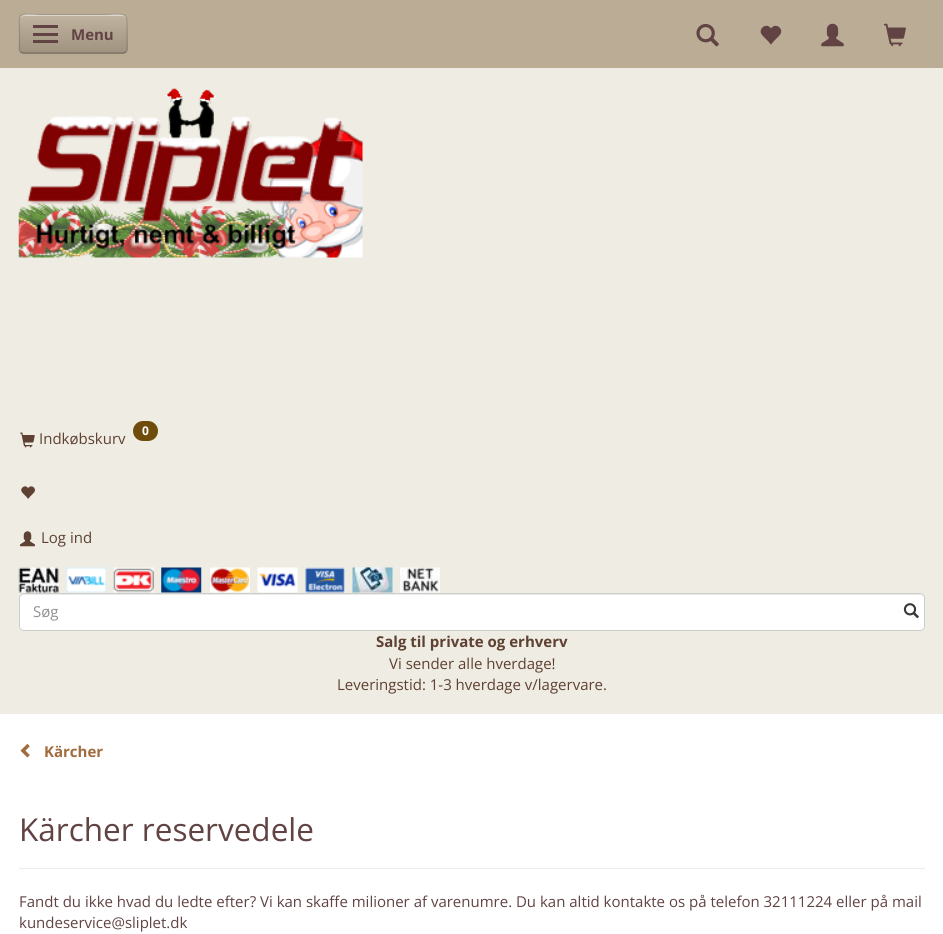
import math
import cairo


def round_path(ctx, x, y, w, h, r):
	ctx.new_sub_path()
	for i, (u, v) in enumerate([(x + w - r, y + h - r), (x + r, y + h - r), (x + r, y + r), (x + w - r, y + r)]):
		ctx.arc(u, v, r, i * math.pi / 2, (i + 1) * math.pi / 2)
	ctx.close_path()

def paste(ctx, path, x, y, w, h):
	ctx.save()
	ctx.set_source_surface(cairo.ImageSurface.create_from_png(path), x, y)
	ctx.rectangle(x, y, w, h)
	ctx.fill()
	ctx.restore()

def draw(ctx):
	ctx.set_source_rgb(0.729, 0.675, 0.584)
	ctx.paint()
	gradient = cairo.LinearGradient(73, 14, 73, 54)
	gradient.add_color_stop_rgba(0, 0.757, 0.706, 0.627, 1)
	gradient.add_color_stop_rgba(1, 0.62, 0.573, 0.498, 1)
	ctx.set_source(gradient)
	round_path(ctx, 19, 14, 109, 40, 5)
	ctx.fill()
	ctx.set_source_rgb(0.878, 0.851, 0.812)
	ctx.new_path()
	ctx.move_to(24, 16)
	ctx.line_to(122, 16)
	ctx.curve_to(125, 16, 126, 18, 126, 20)
	ctx.curve_to(126, 11, 110, 15, 106, 15)
	ctx.line_to(40, 15)
	ctx.curve_to(36, 15, 20, 11, 20, 20)
	ctx.curve_to(20, 18, 22, 16, 24, 16)
	ctx.close_path()
	ctx.fill()
	ctx.new_path()
	ctx.move_to(125.5, 52)
	ctx.line_to(123, 53)
	ctx.line_to(23.5, 53)
	ctx.line_to(20.5, 52)
	ctx.set_source_rgb(0.467, 0.431, 0.376)
	ctx.set_line_width(1.2)
	ctx.stroke()
	ctx.new_path()
	ctx.move_to(20.5, 52)
	ctx.curve_to(18.5, 50, 19.5, 46, 19.5, 44)
	ctx.line_to(19.5, 34)
	ctx.curve_to(19.5, 11, 16, 14.5, 40, 14.5)
	ctx.line_to(106, 14.5)
	ctx.curve_to(130, 14.5, 127, 11, 127, 34)
	ctx.line_to(127, 44)
	ctx.curve_to(127, 46, 127.5, 50, 125.5, 52)
	ctx.set_source_rgba(0, 0, 0, 0.15)
	ctx.stroke()
	ctx.set_source_rgb(0.38, 0.263, 0.263)
	ctx.rectangle(33, 25, 25, 3)
	ctx.rectangle(33, 33, 25, 3)
	ctx.rectangle(33, 40, 25, 3)
	ctx.fill()
	ctx.select_font_face('Open Sans', cairo.FONT_SLANT_NORMAL, cairo.FONT_WEIGHT_BOLD)
	ctx.set_font_size(15)
	ctx.move_to(71, 40)
	ctx.show_text('Menu')
	paste(ctx, 'media/1.png', 696, 23, 23, 24)
	paste(ctx, 'media/2.png', 760, 25, 22, 20)
	paste(ctx, 'media/3.png', 821, 23, 23, 24)
	paste(ctx, 'media/4.png', 883, 23, 23, 24)
	ctx.set_source_rgb(0.937, 0.922, 0.89)
	ctx.rectangle(0, 68, 943, 646)
	ctx.fill()
	paste(ctx, 'media/5.png', 18, 88, 345, 170)
	ctx.set_source_rgb(0.431, 0.302, 0.047)
	round_path(ctx, 133, 421, 25, 20, 10)
	ctx.fill()
	ctx.set_font_size(12)
	ctx.set_source_rgb(1, 1, 1)
	ctx.move_to(142, 435)
	ctx.show_text('0')
	paste(ctx, 'media/6.png', 20, 432, 15, 16)
	ctx.select_font_face('Open Sans')
	ctx.set_font_size(15)
	ctx.set_source_rgb(0.369, 0.255, 0.196)
	ctx.move_to(39, 444)
	ctx.show_text('Indkøbskurv')
	paste(ctx, 'media/7.png', 21, 486, 14, 13)
	paste(ctx, 'media/8.png', 20, 531, 15, 16)
	ctx.move_to(41, 543)
	ctx.show_text('Log ind')
	paste(ctx, 'media/9.png', 18, 567, 41, 26)
	paste(ctx, 'media/10.png', 66, 567, 41, 26)
	paste(ctx, 'media/11.png', 113, 567, 41, 26)
	paste(ctx, 'media/12.png', 161, 567, 41, 26)
	paste(ctx, 'media/13.png', 210, 567, 40, 26)
	paste(ctx, 'media/14.png', 257, 567, 41, 26)
	paste(ctx, 'media/15.png', 305, 567, 40, 26)
	paste(ctx, 'media/16.png', 352, 567, 41, 26)
	paste(ctx, 'media/17.png', 400, 567, 40, 26)
	ctx.set_source_rgb(1, 1, 1)
	round_path(ctx, 19, 593, 906, 38, 5)
	ctx.fill()
	ctx.set_source_rgb(0.925, 0.925, 0.925)
	ctx.new_path()
	ctx.move_to(24, 595)
	ctx.line_to(920, 595)
	ctx.curve_to(922, 595, 924, 597, 924, 599)
	ctx.curve_to(924, 596, 923, 594, 920, 594)
	ctx.line_to(24, 594)
	ctx.curve_to(21, 594, 20, 596, 20, 599)
	ctx.curve_to(20, 597, 22, 595, 24, 595)
	ctx.close_path()
	ctx.fill()
	round_path(ctx, 19.5, 593.5, 905, 37, 4.5)
	ctx.set_source_rgb(0.8, 0.8, 0.8)
	ctx.set_line_width(1)
	ctx.stroke()
	ctx.set_source_rgb(0.569, 0.569, 0.569)
	ctx.move_to(33, 617)
	ctx.show_text('Søg')
	paste(ctx, 'media/18.png', 903, 603, 16, 16)
	ctx.select_font_face('Open Sans', cairo.FONT_SLANT_NORMAL, cairo.FONT_WEIGHT_BOLD)
	ctx.set_source_rgb(0.369, 0.255, 0.196)
	ctx.move_to(376, 647)
	ctx.show_text('Salg til private og erhverv')
	ctx.select_font_face('Open Sans')
	ctx.move_to(389, 669)
	ctx.show_text('Vi sender alle hverdage!')
	ctx.move_to(337, 690)
	ctx.show_text('Leveringstid: 1-3 hverdage v/lagervare.')
	ctx.set_source_rgb(1, 1, 1)
	ctx.rectangle(0, 714, 943, 220)
	ctx.fill()
	paste(ctx, 'media/19.png', 20, 743, 10, 15)
	ctx.select_font_face('Open Sans', cairo.FONT_SLANT_NORMAL, cairo.FONT_WEIGHT_BOLD)
	ctx.set_source_rgb(0.631, 0.424, 0.239)
	ctx.move_to(44, 757)
	ctx.show_text('Kärcher')
	ctx.set_source_rgb(0.918, 0.918, 0.918)
	ctx.rectangle(19, 868, 906, 1)
	ctx.fill()
	ctx.select_font_face('Open Sans')
	ctx.set_font_size(31.5)
	ctx.set_source_rgb(0.38, 0.263, 0.263)
	ctx.move_to(19, 841)
	ctx.show_text('Kärcher reservedele')
	ctx.set_font_size(15)
	ctx.move_to(19, 907)
	ctx.show_text('Fandt du ikke hvad du ledte efter? Vi kan skaffe milioner af varenumre. Du kan altid kontakte os på telefon 32111224 eller på mail')
	ctx.move_to(19, 928)
	ctx.show_text('kundeservice@sliplet.dk')


surface = cairo.ImageSurface(cairo.FORMAT_RGB24, 943, 934)
ctx = cairo.Context(surface)
options = cairo.FontOptions()
options.set_hint_metrics(cairo.HINT_METRICS_OFF)
options.set_hint_style(cairo.HINT_STYLE_NONE)
ctx.set_font_options(options)
ctx.set_miter_limit(4)
draw(ctx)
surface.write_to_png('image.png')
